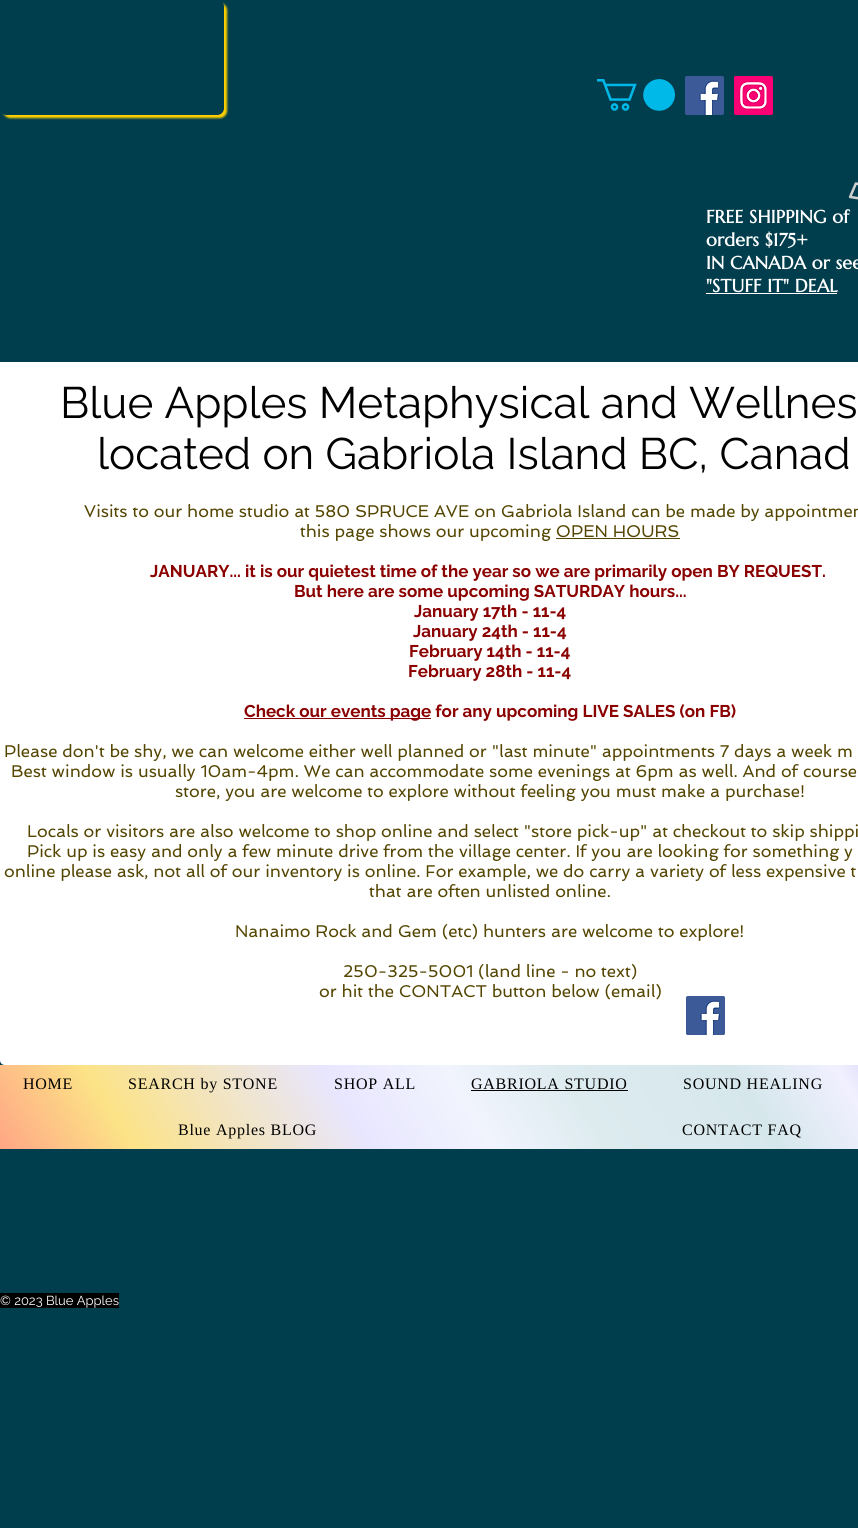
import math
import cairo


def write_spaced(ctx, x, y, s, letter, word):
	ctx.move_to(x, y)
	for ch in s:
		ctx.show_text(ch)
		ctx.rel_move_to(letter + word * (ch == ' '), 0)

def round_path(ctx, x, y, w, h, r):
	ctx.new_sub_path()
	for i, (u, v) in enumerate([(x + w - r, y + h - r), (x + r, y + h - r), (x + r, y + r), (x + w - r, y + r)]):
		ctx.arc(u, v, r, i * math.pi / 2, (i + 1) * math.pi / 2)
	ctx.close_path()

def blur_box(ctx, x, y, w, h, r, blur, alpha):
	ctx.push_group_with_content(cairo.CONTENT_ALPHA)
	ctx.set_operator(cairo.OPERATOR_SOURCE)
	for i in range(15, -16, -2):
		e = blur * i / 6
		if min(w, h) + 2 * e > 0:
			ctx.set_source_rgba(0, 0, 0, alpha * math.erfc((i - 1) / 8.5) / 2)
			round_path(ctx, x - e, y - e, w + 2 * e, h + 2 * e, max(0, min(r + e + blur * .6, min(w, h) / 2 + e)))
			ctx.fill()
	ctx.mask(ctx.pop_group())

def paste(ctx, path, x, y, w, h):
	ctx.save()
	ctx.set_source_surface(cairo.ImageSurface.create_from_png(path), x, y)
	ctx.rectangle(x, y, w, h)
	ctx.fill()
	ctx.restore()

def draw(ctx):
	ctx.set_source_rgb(0, 0.239, 0.302)
	ctx.paint()
	ctx.save()
	ctx.set_fill_rule(cairo.FILL_RULE_EVEN_ODD)
	ctx.new_path()
	ctx.move_to(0, 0)
	ctx.line_to(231, 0)
	ctx.line_to(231, 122)
	ctx.line_to(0, 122)
	ctx.close_path()
	ctx.move_to(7, 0)
	ctx.line_to(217, 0)
	ctx.curve_to(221, 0, 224, 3, 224, 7)
	ctx.line_to(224, 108)
	ctx.curve_to(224, 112, 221, 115, 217, 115)
	ctx.line_to(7, 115)
	ctx.curve_to(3, 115, 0, 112, 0, 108)
	ctx.line_to(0, 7)
	ctx.curve_to(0, 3, 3, 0, 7, 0)
	ctx.close_path()
	ctx.clip()
	ctx.set_source_rgb(1, 0.816, 0)
	blur_box(ctx, 3, 3, 224, 115, 7, 1, 1)
	ctx.restore()
	paste(ctx, 'media/1.png', 597, 79, 78, 32)
	paste(ctx, 'media/2.png', 685, 76, 39, 39)
	paste(ctx, 'media/3.png', 734, 76, 39, 39)
	paste(ctx, 'media/4.png', 848, 182, 10, 18)
	ctx.select_font_face('Marcellus', cairo.FONT_SLANT_NORMAL, cairo.FONT_WEIGHT_BOLD)
	ctx.set_font_size(18)
	ctx.set_source_rgb(1, 1, 1)
	for x, y, s in [
		(706, 223, 'FREE SHIPPING of'),
		(706, 246, 'orders $175+'),
		(706, 269, 'IN CANADA or see'),
		(706, 292, '"STUFF IT" DEAL'),
	]:
		write_spaced(ctx, x, y, s, 0.2, 0)
	ctx.rectangle(706, 293, 131, 1)
	ctx.fill()
	ctx.new_path()
	ctx.move_to(0, 362)
	ctx.line_to(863, 362)
	ctx.line_to(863, 1060)
	ctx.curve_to(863, 1063, 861, 1065, 858, 1065)
	ctx.line_to(5, 1065)
	ctx.curve_to(2, 1065, 0, 1063, 0, 1060)
	ctx.close_path()
	ctx.fill()
	ctx.select_font_face('Raleway')
	ctx.set_font_size(44)
	ctx.set_source_rgb(0, 0, 0)
	ctx.move_to(60, 418)
	ctx.show_text('Blue Apples Metaphysical and Wellnes')
	ctx.move_to(97, 469)
	ctx.show_text('located on Gabriola Island BC, Canad')
	ctx.select_font_face('Spinnaker')
	ctx.set_font_size(17)
	ctx.set_source_rgb(0.329, 0.271, 0)
	ctx.move_to(84, 517)
	ctx.show_text('Visits to our home studio at 580 SPRUCE AVE on Gabriola Island can be made by appointmen')
	ctx.move_to(300, 537)
	ctx.show_text('this page shows our upcoming OPEN HOURS')
	ctx.rectangle(556, 538, 124, 1)
	ctx.fill()
	ctx.select_font_face('Raleway', cairo.FONT_SLANT_NORMAL, cairo.FONT_WEIGHT_BOLD)
	ctx.set_source_rgb(0.545, 0, 0)
	for x, y, s in [
		(150, 577, 'JANUARY... it is our quietest time of the year so we are primarily open BY REQUEST.'),
		(294, 597, 'But here are some upcoming SATURDAY hours...'),
		(414, 617, 'January 17th - 11-4'),
		(413, 637, 'January 24th - 11-4'),
		(409, 657, 'February 14th - 11-4'),
		(408, 677, 'February 28th - 11-4'),
	]:
		ctx.move_to(x, y)
		ctx.show_text(s)
	ctx.rectangle(244, 718, 187, 1)
	ctx.fill()
	ctx.move_to(244, 717)
	ctx.show_text('Check our events page for any upcoming LIVE SALES (on FB)')
	ctx.select_font_face('Spinnaker')
	ctx.set_source_rgb(0.329, 0.271, 0)
	for x, y, s in [
		(4, 757, 'Please don\'t be shy, we can welcome either well planned or "last minute" appointments 7 days a week m'),
		(11, 777, 'Best window is usually 10am-4pm. We can accommodate some evenings at 6pm as well. And of course'),
		(175, 797, 'store, you are welcome to explore without feeling you must make a purchase!'),
		(27, 837, 'Locals or visitors are also welcome to shop online and select "store pick-up" at checkout to skip shippi'),
		(27, 857, 'Pick up is easy and only a few minute drive from the village center. If you are looking for something y'),
		(4, 877, 'online please ask, not all of our inventory is online. For example, we do carry a variety of less expensive t'),
		(369, 897, 'that are often unlisted online.'),
		(235, 937, 'Nanaimo Rock and Gem (etc) hunters are welcome to explore!'),
		(343, 977, '250-325-5001 (land line - no text)'),
		(319, 997, 'or hit the CONTACT button below (email)'),
	]:
		ctx.move_to(x, y)
		ctx.show_text(s)
	paste(ctx, 'media/5.png', 686, 996, 39, 39)
	gradient = cairo.LinearGradient(119, 1339, 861, 875)
	gradient.add_color_stop_rgba(0, 1, 0.651, 0.522, 1)
	gradient.add_color_stop_rgba(0.13, 0.988, 0.89, 0.529, 1)
	gradient.add_color_stop_rgba(0.36, 0.91, 0.902, 1, 1)
	gradient.add_color_stop_rgba(0.48, 0.945, 0.957, 0.992, 1)
	gradient.add_color_stop_rgba(0.59, 0.867, 0.922, 0.937, 1)
	gradient.add_color_stop_rgba(0.76, 0.839, 0.906, 0.925, 1)
	gradient.add_color_stop_rgba(0.86, 0.945, 0.941, 1, 1)
	gradient.add_color_stop_rgba(0.99, 0.663, 0.647, 0.91, 1)
	ctx.set_source(gradient)
	ctx.rectangle(0, 1065, 858, 84)
	ctx.fill()
	ctx.select_font_face('Liberation Serif')
	ctx.set_font_size(16)
	ctx.set_source_rgb(0, 0, 0)
	for x, y, s in [
		(23, 1089, 'HOME'),
		(128, 1089, 'SEARCH by STONE'),
		(334, 1089, 'SHOP ALL'),
		(471, 1089, 'GABRIOLA STUDIO'),
	]:
		write_spaced(ctx, x, y, s, 0.75, 0)
	ctx.rectangle(471, 1090, 157, 1)
	ctx.fill()
	for x, y, s in [
		(683, 1089, 'SOUND HEALING'),
		(178, 1135, 'Blue Apples BLOG'),
		(682, 1135, 'CONTACT FAQ'),
	]:
		write_spaced(ctx, x, y, s, 0.75, 0)
	ctx.rectangle(0, 1293, 119, 15)
	ctx.fill()
	ctx.select_font_face('Raleway')
	ctx.set_font_size(13)
	ctx.set_source_rgb(1, 1, 1)
	ctx.move_to(0, 1305)
	ctx.show_text('© 2023 Blue Apples')


surface = cairo.ImageSurface(cairo.FORMAT_RGB24, 858, 1528)
ctx = cairo.Context(surface)
options = cairo.FontOptions()
options.set_hint_metrics(cairo.HINT_METRICS_OFF)
options.set_hint_style(cairo.HINT_STYLE_NONE)
ctx.set_font_options(options)
ctx.set_miter_limit(4)
draw(ctx)
surface.write_to_png('image.png')
